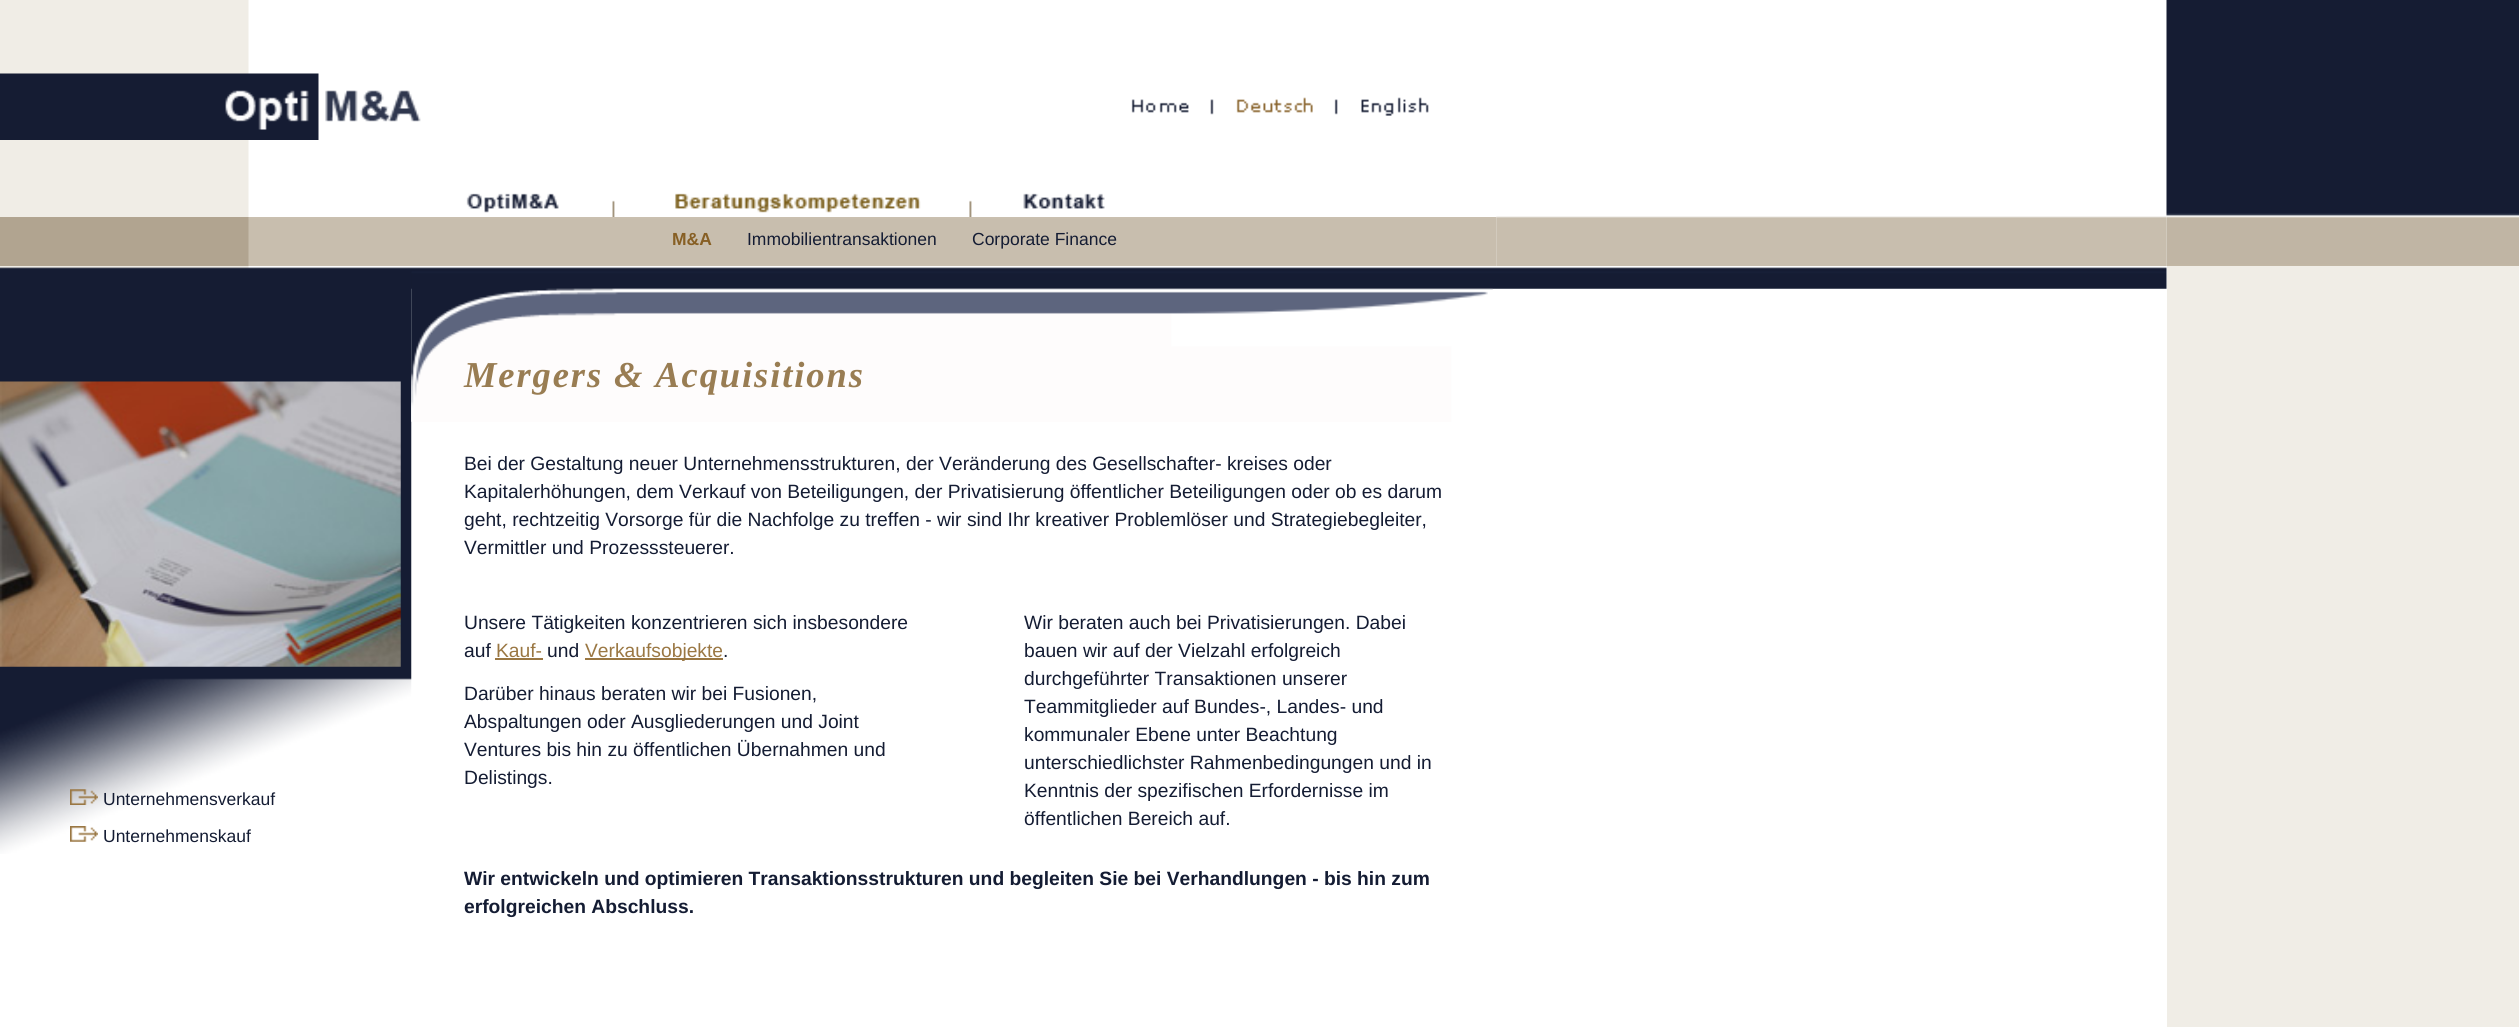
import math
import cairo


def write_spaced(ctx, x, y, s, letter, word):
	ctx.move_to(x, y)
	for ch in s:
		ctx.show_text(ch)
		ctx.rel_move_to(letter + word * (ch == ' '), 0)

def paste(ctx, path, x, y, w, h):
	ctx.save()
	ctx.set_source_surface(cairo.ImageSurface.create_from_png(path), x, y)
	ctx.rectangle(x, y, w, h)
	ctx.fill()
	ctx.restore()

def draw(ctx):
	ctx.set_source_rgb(1, 1, 1)
	ctx.paint()
	paste(ctx, 'media/1.png', 1496, 216, 671, 50)
	paste(ctx, 'media/2.png', 0, 0, 1497, 266)
	paste(ctx, 'media/12.png', 0, 217, 1497, 49)
	ctx.select_font_face('Liberation Sans', cairo.FONT_SLANT_NORMAL, cairo.FONT_WEIGHT_BOLD)
	ctx.set_font_size(17.5)
	ctx.set_source_rgb(0.529, 0.373, 0.141)
	ctx.move_to(672, 245)
	ctx.show_text('M&A')
	ctx.select_font_face('Liberation Sans')
	ctx.set_source_rgb(0.082, 0.11, 0.2)
	ctx.move_to(747, 245)
	ctx.show_text('Immobilientransaktionen')
	ctx.move_to(972, 245)
	ctx.show_text('Corporate Finance')
	paste(ctx, 'media/3.png', 0, 73, 421, 67)
	paste(ctx, 'media/4.png', 1131, 99, 58, 14)
	paste(ctx, 'media/5.png', 1210, 97, 103, 18)
	paste(ctx, 'media/6.png', 1334, 97, 95, 19)
	paste(ctx, 'media/7.png', 466, 193, 93, 20)
	paste(ctx, 'media/8.png', 612, 200, 3, 17)
	paste(ctx, 'media/9.png', 675, 193, 246, 20)
	paste(ctx, 'media/10.png', 969, 200, 3, 17)
	paste(ctx, 'media/11.png', 1023, 193, 82, 16)
	paste(ctx, 'media/13.png', 2166, 0, 353, 266)
	paste(ctx, 'media/14.png', 411, 267, 1756, 22)
	paste(ctx, 'media/15.png', 0, 266, 412, 588)
	paste(ctx, 'media/16.png', 0, 381, 401, 286)
	paste(ctx, 'media/17.png', 70, 789, 28, 16)
	ctx.move_to(103, 805)
	ctx.show_text('Unternehmensverkauf')
	paste(ctx, 'media/18.png', 70, 826, 28, 16)
	ctx.move_to(103, 842)
	ctx.show_text('Unternehmenskauf')
	paste(ctx, 'media/19.png', 411, 288, 1082, 134)
	ctx.select_font_face('Liberation Serif', cairo.FONT_SLANT_ITALIC, cairo.FONT_WEIGHT_BOLD)
	ctx.set_font_size(36.5)
	ctx.set_source_rgb(0.6, 0.49, 0.325)
	write_spaced(ctx, 464, 387, 'Mergers & Acquisitions', 1.9, 0)
	ctx.select_font_face('Liberation Sans')
	ctx.set_font_size(19.25)
	ctx.set_source_rgb(0.082, 0.11, 0.2)
	for x, y, s in [
		(464, 470, 'Bei der Gestaltung neuer Unternehmensstrukturen, der Veränderung des Gesellschafter- kreises oder'),
		(464, 498, 'Kapitalerhöhungen, dem Verkauf von Beteiligungen, der Privatisierung öffentlicher Beteiligungen oder ob es darum'),
		(464, 526, 'geht, rechtzeitig Vorsorge für die Nachfolge zu treffen - wir sind Ihr kreativer Problemlöser und Strategiebegleiter,'),
		(464, 554, 'Vermittler und Prozesssteuerer.'),
		(464, 629, 'Unsere Tätigkeiten konzentrieren sich insbesondere'),
		(464, 657, 'auf'),
	]:
		ctx.move_to(x, y)
		ctx.show_text(s)
	ctx.set_source_rgb(0.604, 0.467, 0.263)
	ctx.move_to(496, 657)
	ctx.show_text('Kauf-')
	ctx.rectangle(495, 658, 48, 2)
	ctx.fill()
	ctx.set_source_rgb(0.082, 0.11, 0.2)
	ctx.move_to(547, 657)
	ctx.show_text('und')
	ctx.set_source_rgb(0.604, 0.467, 0.263)
	ctx.rectangle(585, 658, 138, 2)
	ctx.fill()
	ctx.move_to(585, 657)
	ctx.show_text('Verkaufsobjekte')
	ctx.set_source_rgb(0.082, 0.11, 0.2)
	for x, y, s in [
		(723, 657, '.'),
		(464, 700, 'Darüber hinaus beraten wir bei Fusionen,'),
		(464, 728, 'Abspaltungen oder Ausgliederungen und Joint'),
		(464, 756, 'Ventures bis hin zu öffentlichen Übernahmen und'),
		(464, 784, 'Delistings.'),
		(1024, 629, 'Wir beraten auch bei Privatisierungen. Dabei'),
		(1024, 657, 'bauen wir auf der Vielzahl erfolgreich'),
		(1024, 685, 'durchgeführter Transaktionen unserer'),
		(1024, 713, 'Teammitglieder auf Bundes-, Landes- und'),
		(1024, 741, 'kommunaler Ebene unter Beachtung'),
		(1024, 769, 'unterschiedlichster Rahmenbedingungen und in'),
		(1024, 797, 'Kenntnis der spezifischen Erfordernisse im'),
		(1024, 825, 'öffentlichen Bereich auf.'),
	]:
		ctx.move_to(x, y)
		ctx.show_text(s)
	ctx.select_font_face('Liberation Sans', cairo.FONT_SLANT_NORMAL, cairo.FONT_WEIGHT_BOLD)
	ctx.move_to(464, 885)
	ctx.show_text('Wir entwickeln und optimieren Transaktionsstrukturen und begleiten Sie bei Verhandlungen - bis hin zum')
	ctx.move_to(464, 913)
	ctx.show_text('erfolgreichen Abschluss.')
	ctx.set_source_rgb(0.941, 0.929, 0.902)
	ctx.rectangle(2167, 266, 352, 761)
	ctx.fill()


surface = cairo.ImageSurface(cairo.FORMAT_RGB24, 2519, 1027)
ctx = cairo.Context(surface)
options = cairo.FontOptions()
options.set_hint_metrics(cairo.HINT_METRICS_OFF)
options.set_hint_style(cairo.HINT_STYLE_NONE)
ctx.set_font_options(options)
ctx.set_miter_limit(4)
draw(ctx)
surface.write_to_png('image.png')
